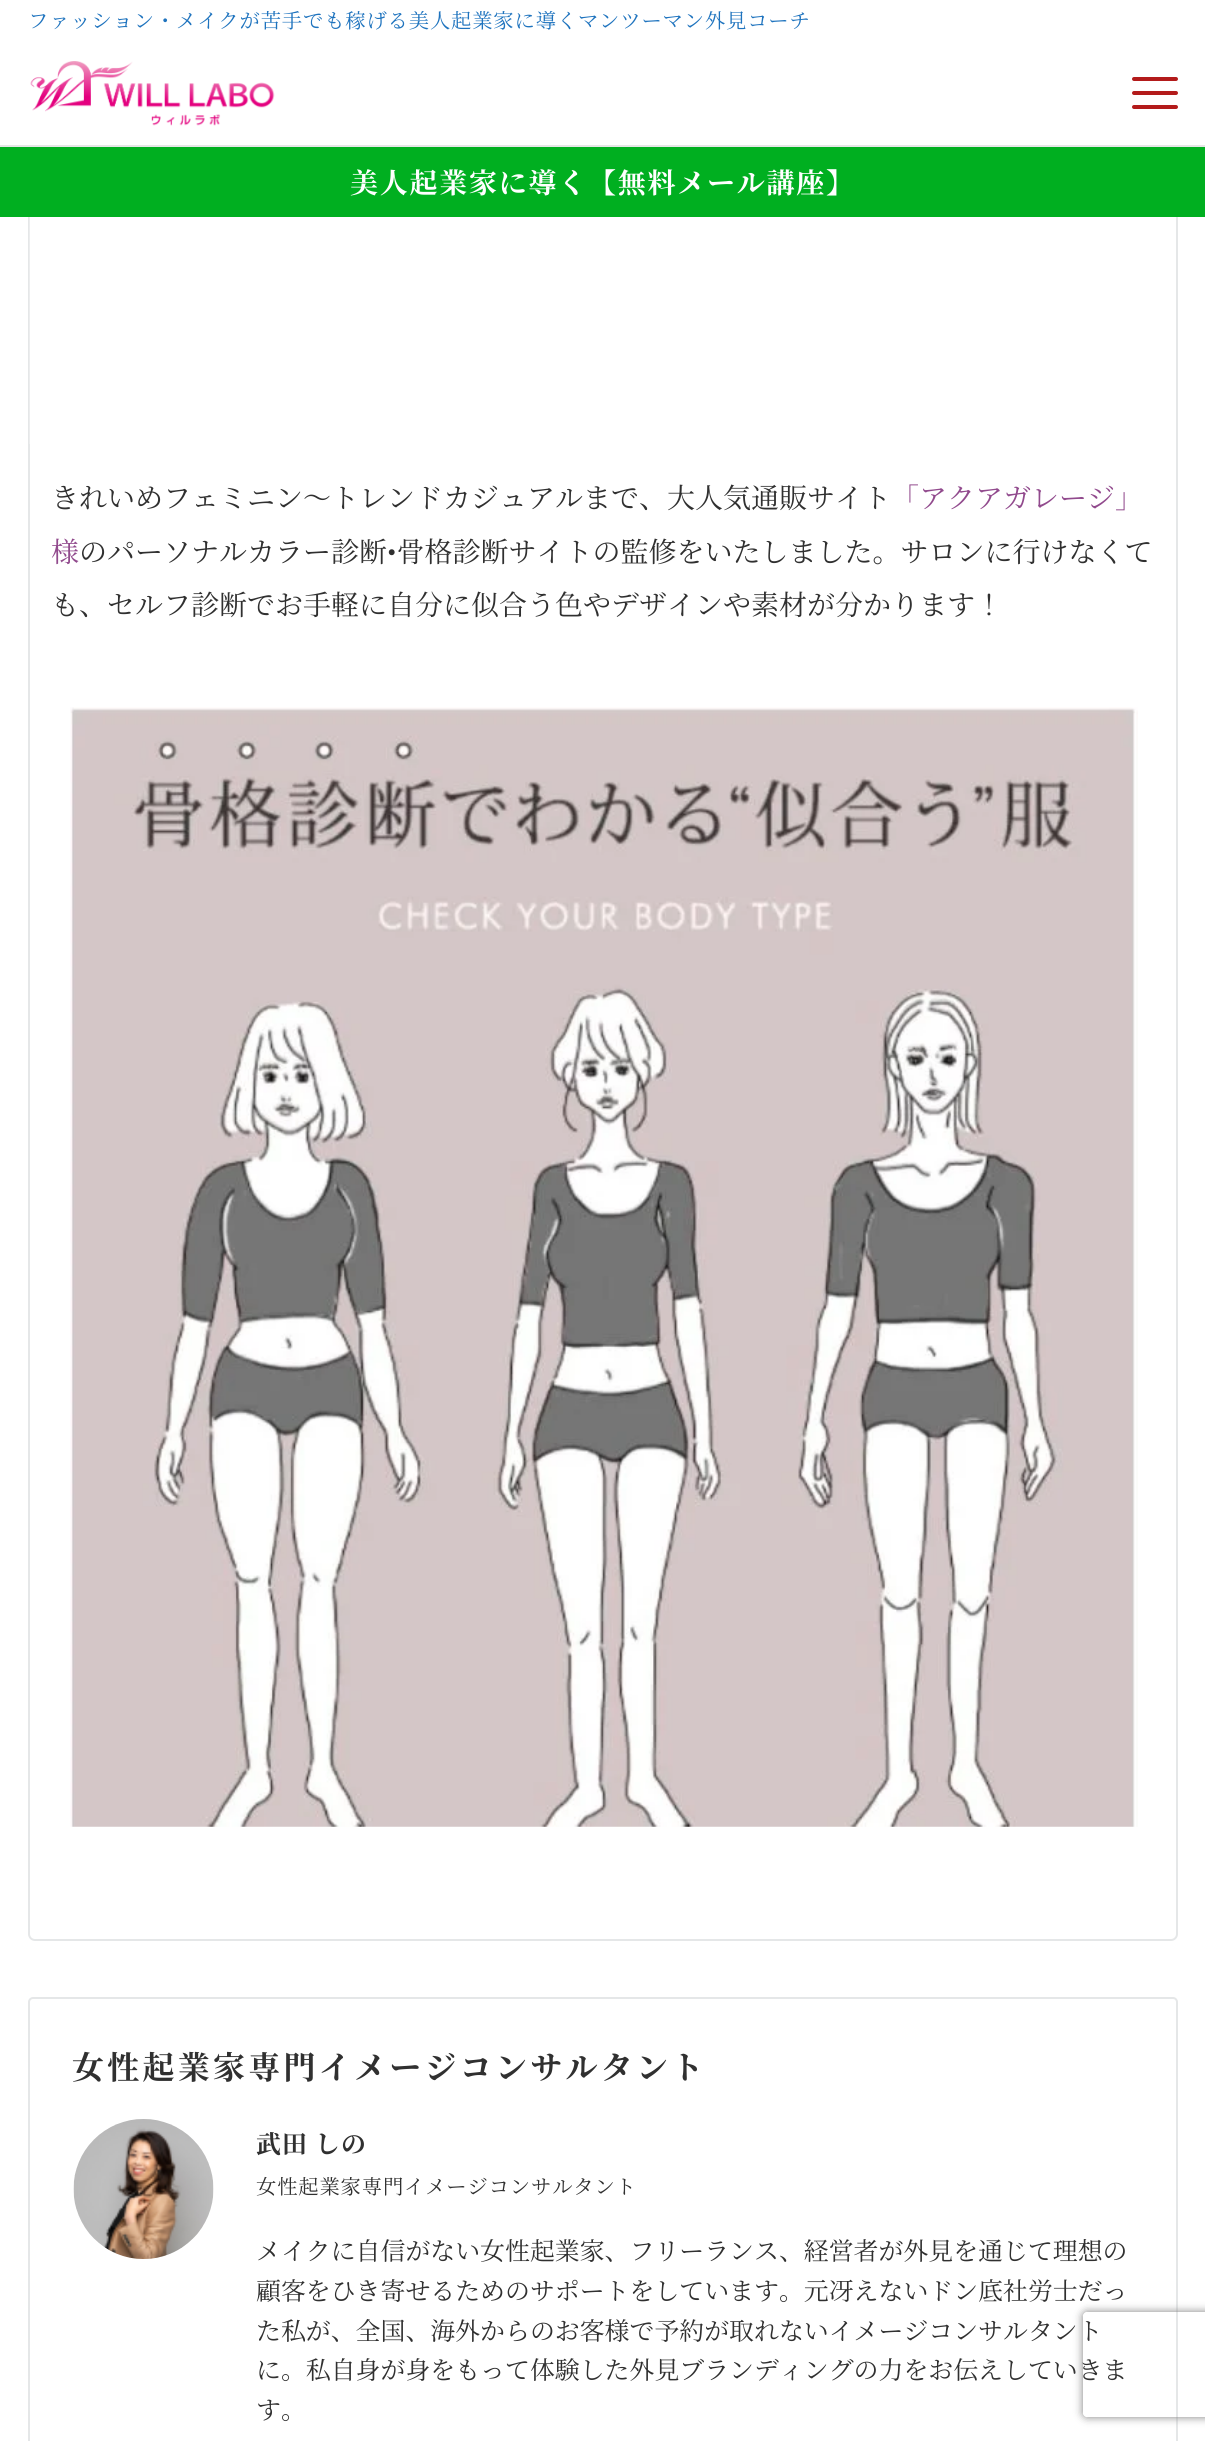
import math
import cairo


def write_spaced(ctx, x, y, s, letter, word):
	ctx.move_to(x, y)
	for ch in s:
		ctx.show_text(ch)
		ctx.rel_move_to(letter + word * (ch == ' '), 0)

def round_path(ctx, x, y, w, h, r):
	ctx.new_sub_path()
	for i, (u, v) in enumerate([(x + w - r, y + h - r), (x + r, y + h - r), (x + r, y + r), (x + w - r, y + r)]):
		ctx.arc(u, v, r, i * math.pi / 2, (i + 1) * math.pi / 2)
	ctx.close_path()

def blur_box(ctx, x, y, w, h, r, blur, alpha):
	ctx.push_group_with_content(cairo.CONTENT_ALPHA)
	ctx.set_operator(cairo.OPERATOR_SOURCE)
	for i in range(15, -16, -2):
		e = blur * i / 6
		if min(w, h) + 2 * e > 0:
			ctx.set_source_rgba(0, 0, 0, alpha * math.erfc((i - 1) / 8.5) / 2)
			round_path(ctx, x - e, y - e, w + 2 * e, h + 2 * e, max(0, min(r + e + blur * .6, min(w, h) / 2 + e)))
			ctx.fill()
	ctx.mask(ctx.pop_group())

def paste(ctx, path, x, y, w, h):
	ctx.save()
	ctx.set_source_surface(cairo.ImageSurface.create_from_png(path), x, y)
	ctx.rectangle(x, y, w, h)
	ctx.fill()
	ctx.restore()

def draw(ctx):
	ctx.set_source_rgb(1, 1, 1)
	ctx.paint()
	round_path(ctx, 29, -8, 1148, 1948, 6)
	ctx.set_source_rgb(0.898, 0.906, 0.91)
	ctx.stroke()
	ctx.set_source_rgb(1, 1, 1)
	ctx.rectangle(28, 0, 1150, 145)
	ctx.fill()
	ctx.select_font_face('Noto Serif JP')
	ctx.set_font_size(20.35)
	ctx.set_source_rgb(0.118, 0.451, 0.745)
	write_spaced(ctx, 28, 28, 'ファッション・メイクが苦手でも稼げる美人起業家に導くマンツーマン外見コーチ', 0.8, 0)
	ctx.set_source_rgb(0.902, 0.902, 0.902)
	ctx.rectangle(0, 145, 1205, 2)
	ctx.fill()
	paste(ctx, 'media/1.png', 30, 61, 245, 65)
	ctx.set_source_rgb(0.702, 0.106, 0.106)
	round_path(ctx, 1132, 77, 46, 4, 2)
	ctx.fill()
	round_path(ctx, 1132, 91, 46, 4, 2)
	ctx.fill()
	round_path(ctx, 1132, 105, 46, 4, 2)
	ctx.fill()
	ctx.set_source_rgb(0, 0.686, 0.125)
	ctx.rectangle(0, 147, 1205, 70)
	ctx.fill()
	ctx.select_font_face('Noto Serif JP', cairo.FONT_SLANT_NORMAL, cairo.FONT_WEIGHT_BOLD)
	ctx.set_font_size(28)
	ctx.set_source_rgb(1, 1, 1)
	write_spaced(ctx, 350, 193, '美人起業家に導く【無料メール講座】', 1.75, 0)
	paste(ctx, 'media/2.png', 29, 217, 1052, 227)
	ctx.select_font_face('Noto Serif JP')
	ctx.set_source_rgb(0.188, 0.188, 0.188)
	ctx.move_to(51, 508)
	ctx.show_text('きれいめフェミニン〜トレンドカジュアルまで、大人気通販サイト')
	ctx.set_source_rgb(0.569, 0.29, 0.553)
	ctx.move_to(891, 508)
	ctx.show_text('「アクアガレージ」')
	ctx.move_to(51, 562)
	ctx.show_text('様')
	ctx.set_source_rgb(0.188, 0.188, 0.188)
	ctx.move_to(79, 562)
	ctx.show_text('のパーソナルカラー診断•骨格診断サイトの監修をいたしました。サロンに行けなくて')
	ctx.move_to(51, 615)
	ctx.show_text('も、セルフ診断でお手軽に自分に似合う色やデザインや素材が分かります！')
	paste(ctx, 'media/3.png', 70, 707, 1068, 1120)
	round_path(ctx, 29, 1998, 1148, 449, 4)
	ctx.set_source_rgb(0.898, 0.906, 0.91)
	ctx.stroke()
	ctx.select_font_face('Noto Serif JP', cairo.FONT_SLANT_NORMAL, cairo.FONT_WEIGHT_BOLD)
	ctx.set_font_size(32)
	ctx.set_source_rgb(0.188, 0.188, 0.188)
	write_spaced(ctx, 72, 2079, '女性起業家専門イメージコンサルタント', 3.25, 0)
	paste(ctx, 'media/4.png', 73, 2119, 141, 140)
	ctx.set_font_size(24.9)
	write_spaced(ctx, 256, 2153, '武田 しの', 1, 0)
	ctx.select_font_face('Noto Serif JP')
	ctx.set_font_size(20.35)
	write_spaced(ctx, 256, 2194, '女性起業家専門イメージコンサルタント', 0.8, 0)
	ctx.set_font_size(24.9)
	for x, y, s in [
		(256, 2260, 'メイクに自信がない女性起業家、フリーランス、経営者が外見を通じて理想の'),
		(256, 2300, '顧客をひき寄せるためのサポートをしています。元冴えないドン底社労士だっ'),
		(256, 2340, 'た私が、全国、海外からのお客様で予約が取れないイメージコンサルタント'),
		(256, 2379, 'に。私自身が身をもって体験した外見ブランディングの力をお伝えしていきま'),
		(256, 2419, 'す。'),
	]:
		ctx.move_to(x, y)
		ctx.show_text(s)
	ctx.save()
	ctx.set_fill_rule(cairo.FILL_RULE_EVEN_ODD)
	ctx.new_path()
	ctx.move_to(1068, 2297)
	ctx.line_to(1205, 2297)
	ctx.line_to(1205, 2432)
	ctx.line_to(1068, 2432)
	ctx.close_path()
	ctx.move_to(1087, 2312)
	ctx.line_to(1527, 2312)
	ctx.curve_to(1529, 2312, 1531, 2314, 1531, 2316)
	ctx.line_to(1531, 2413)
	ctx.curve_to(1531, 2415, 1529, 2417, 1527, 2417)
	ctx.line_to(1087, 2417)
	ctx.curve_to(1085, 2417, 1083, 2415, 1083, 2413)
	ctx.line_to(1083, 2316)
	ctx.curve_to(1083, 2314, 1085, 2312, 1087, 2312)
	ctx.close_path()
	ctx.clip()
	ctx.set_source_rgb(0.502, 0.502, 0.502)
	blur_box(ctx, 1083, 2312, 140, 105, 4, 4.5, 1)
	ctx.restore()


surface = cairo.ImageSurface(cairo.FORMAT_RGB24, 1205, 2441)
ctx = cairo.Context(surface)
options = cairo.FontOptions()
options.set_hint_metrics(cairo.HINT_METRICS_OFF)
options.set_hint_style(cairo.HINT_STYLE_NONE)
ctx.set_font_options(options)
ctx.set_miter_limit(4)
draw(ctx)
surface.write_to_png('image.png')
